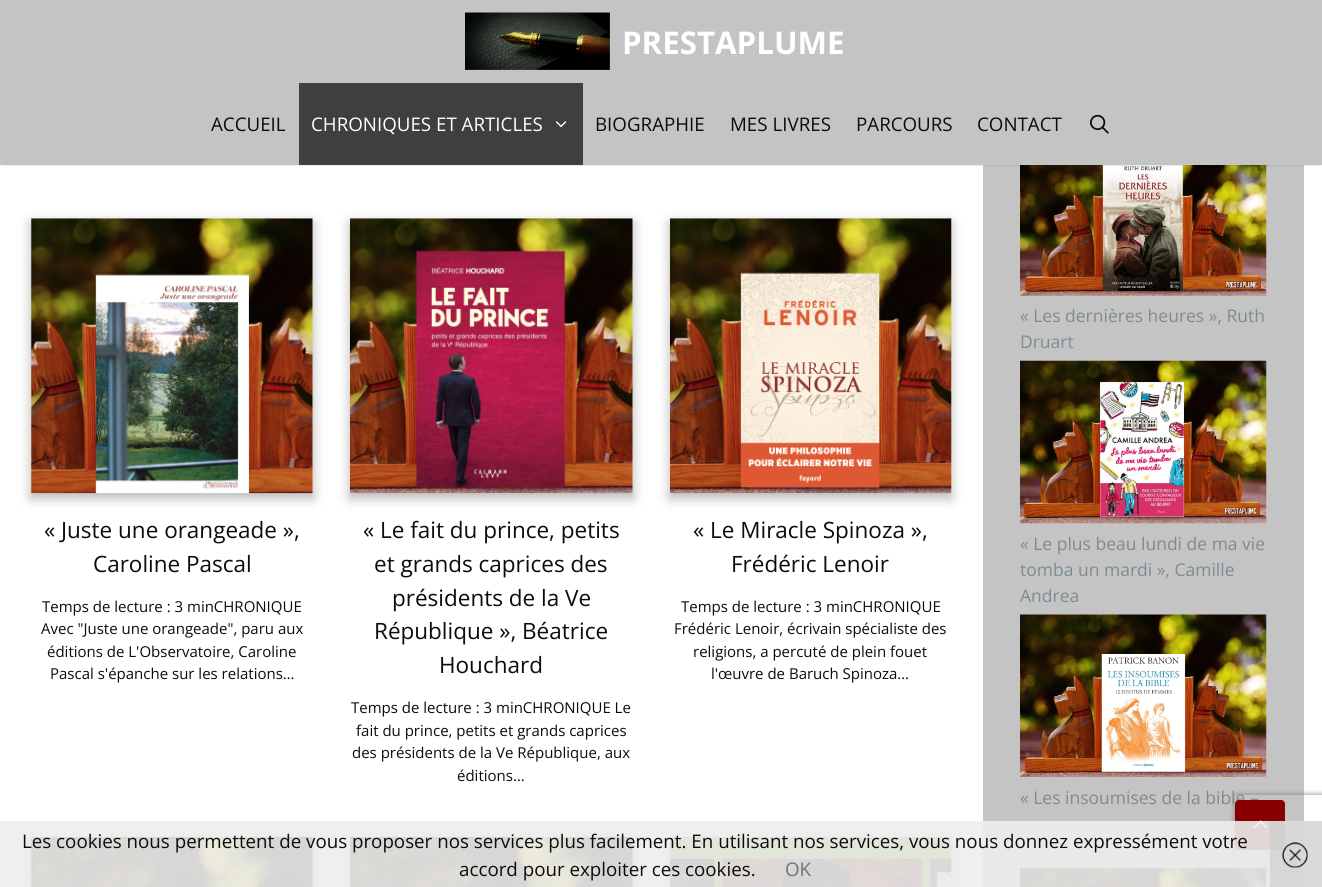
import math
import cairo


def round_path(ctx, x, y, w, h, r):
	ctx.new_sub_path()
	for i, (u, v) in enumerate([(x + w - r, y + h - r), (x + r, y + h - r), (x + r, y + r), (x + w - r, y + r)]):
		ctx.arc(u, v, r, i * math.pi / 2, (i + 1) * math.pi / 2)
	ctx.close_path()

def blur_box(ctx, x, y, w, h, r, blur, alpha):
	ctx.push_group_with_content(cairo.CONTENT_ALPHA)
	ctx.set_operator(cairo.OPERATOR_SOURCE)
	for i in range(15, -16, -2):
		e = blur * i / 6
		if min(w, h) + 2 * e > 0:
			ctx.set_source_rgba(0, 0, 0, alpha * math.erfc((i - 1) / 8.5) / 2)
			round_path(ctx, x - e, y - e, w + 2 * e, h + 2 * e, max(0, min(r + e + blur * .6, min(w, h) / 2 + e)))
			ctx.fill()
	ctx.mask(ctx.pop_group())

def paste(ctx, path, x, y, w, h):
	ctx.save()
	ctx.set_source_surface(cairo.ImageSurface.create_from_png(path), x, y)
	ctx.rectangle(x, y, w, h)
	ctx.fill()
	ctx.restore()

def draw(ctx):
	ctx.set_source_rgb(1, 1, 1)
	ctx.paint()
	ctx.set_source_rgb(0.769, 0.769, 0.769)
	ctx.rectangle(983, 165, 321, 722)
	ctx.fill()
	paste(ctx, 'media/10.png', 1020, 165, 247, 131)
	ctx.set_source_rgb(0, 0, 0)
	blur_box(ctx, 3, 5, 1317, 160, 0, 1, 0.2)
	ctx.set_source_rgb(0.769, 0.769, 0.769)
	ctx.rectangle(0, 0, 1322, 165)
	ctx.fill()
	paste(ctx, 'media/1.png', 465, 12, 145, 58)
	ctx.select_font_face('Open Sans', cairo.FONT_SLANT_NORMAL, cairo.FONT_WEIGHT_BOLD)
	ctx.set_font_size(31.25)
	ctx.set_source_rgb(1, 1, 1)
	ctx.move_to(622, 54)
	ctx.show_text('PRESTAPLUME')
	ctx.select_font_face('Open Sans')
	ctx.set_font_size(18.75)
	ctx.set_source_rgb(0.047, 0.047, 0.047)
	ctx.move_to(211, 131)
	ctx.show_text('ACCUEIL')
	ctx.set_source_rgb(0.247, 0.247, 0.247)
	ctx.rectangle(299, 83, 284, 82)
	ctx.fill()
	ctx.set_source_rgb(1, 1, 1)
	ctx.move_to(311, 131)
	ctx.show_text('CHRONIQUES ET ARTICLES')
	paste(ctx, 'media/2.png', 555, 121, 12, 7)
	ctx.set_source_rgb(0.047, 0.047, 0.047)
	for x, y, s in [
		(595, 131, 'BIOGRAPHIE'),
		(730, 131, 'MES LIVRES'),
		(856, 131, 'PARCOURS'),
		(977, 131, 'CONTACT'),
	]:
		ctx.move_to(x, y)
		ctx.show_text(s)
	paste(ctx, 'media/3.png', 1090, 114, 19, 20)
	ctx.set_source_rgb(0.71, 0.71, 0.71)
	blur_box(ctx, 31, 223, 282, 275, 0, 6, 1)
	paste(ctx, 'media/4.png', 31, 218, 282, 276)
	ctx.set_font_size(22.5)
	ctx.set_source_rgb(0.047, 0.047, 0.047)
	ctx.move_to(44, 538)
	ctx.show_text('« Juste une orangeade »,')
	ctx.move_to(93, 572)
	ctx.show_text('Caroline Pascal')
	ctx.set_font_size(15)
	for x, y, s in [
		(42, 612, 'Temps de lecture : 3 minCHRONIQUE'),
		(41, 634, 'Avec "Juste une orangeade", paru aux'),
		(47, 657, 'éditions de L\'Observatoire, Caroline'),
		(50, 679, 'Pascal s\'épanche sur les relations…'),
	]:
		ctx.move_to(x, y)
		ctx.show_text(s)
	ctx.set_source_rgb(0.71, 0.71, 0.71)
	blur_box(ctx, 350, 223, 283, 275, 0, 6, 1)
	paste(ctx, 'media/5.png', 350, 218, 283, 276)
	ctx.set_font_size(22.5)
	ctx.set_source_rgb(0.047, 0.047, 0.047)
	for x, y, s in [
		(363, 538, '« Le fait du prince, petits'),
		(374, 572, 'et grands caprices des'),
		(392, 606, 'présidents de la Ve'),
		(374, 639, 'République », Béatrice'),
		(439, 673, 'Houchard'),
	]:
		ctx.move_to(x, y)
		ctx.show_text(s)
	ctx.set_font_size(15)
	for x, y, s in [
		(351, 713, 'Temps de lecture : 3 minCHRONIQUE Le'),
		(356, 736, 'fait du prince, petits et grands caprices'),
		(352, 758, 'des présidents de la Ve République, aux'),
		(457, 781, 'éditions…'),
	]:
		ctx.move_to(x, y)
		ctx.show_text(s)
	ctx.set_source_rgb(0.71, 0.71, 0.71)
	blur_box(ctx, 670, 223, 281, 275, 0, 6, 1)
	paste(ctx, 'media/6.png', 670, 218, 282, 276)
	ctx.set_font_size(22.5)
	ctx.set_source_rgb(0.047, 0.047, 0.047)
	ctx.move_to(693, 538)
	ctx.show_text('« Le Miracle Spinoza »,')
	ctx.move_to(731, 572)
	ctx.show_text('Frédéric Lenoir')
	ctx.set_font_size(15)
	for x, y, s in [
		(681, 612, 'Temps de lecture : 3 minCHRONIQUE'),
		(674, 634, 'Frédéric Lenoir, écrivain spécialiste des'),
		(693, 657, 'religions, a percuté de plein fouet'),
		(711, 679, 'l\'œuvre de Baruch Spinoza…'),
	]:
		ctx.move_to(x, y)
		ctx.show_text(s)
	ctx.set_source_rgb(0.71, 0.71, 0.71)
	blur_box(ctx, 31, 841, 282, 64, 0, 6, 1)
	paste(ctx, 'media/7.png', 31, 837, 282, 50)
	blur_box(ctx, 350, 841, 283, 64, 0, 6, 1)
	paste(ctx, 'media/8.png', 350, 837, 283, 50)
	blur_box(ctx, 670, 841, 281, 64, 0, 6, 1)
	paste(ctx, 'media/9.png', 670, 837, 282, 50)
	ctx.set_font_size(17.5)
	ctx.set_source_rgb(0.49, 0.549, 0.573)
	ctx.move_to(1020, 322)
	ctx.show_text('« Les dernières heures », Ruth')
	ctx.move_to(1020, 348)
	ctx.show_text('Druart')
	paste(ctx, 'media/11.png', 1020, 360, 247, 164)
	for x, y, s in [
		(1020, 550, '« Le plus beau lundi de ma vie'),
		(1020, 576, 'tomba un mardi », Camille'),
		(1020, 602, 'Andrea'),
	]:
		ctx.move_to(x, y)
		ctx.show_text(s)
	paste(ctx, 'media/12.png', 1020, 614, 247, 163)
	ctx.move_to(1020, 804)
	ctx.show_text('« Les insoumises de la bible –')
	paste(ctx, 'media/13.png', 1020, 868, 247, 19)
	ctx.save()
	ctx.set_fill_rule(cairo.FILL_RULE_EVEN_ODD)
	ctx.new_path()
	ctx.move_to(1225, 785)
	ctx.line_to(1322, 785)
	ctx.line_to(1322, 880)
	ctx.line_to(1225, 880)
	ctx.close_path()
	ctx.move_to(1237.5, 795)
	ctx.line_to(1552.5, 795)
	ctx.curve_to(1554, 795, 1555, 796, 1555, 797.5)
	ctx.line_to(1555, 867.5)
	ctx.curve_to(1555, 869, 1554, 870, 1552.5, 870)
	ctx.line_to(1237.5, 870)
	ctx.curve_to(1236, 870, 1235, 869, 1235, 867.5)
	ctx.line_to(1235, 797.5)
	ctx.curve_to(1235, 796, 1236, 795, 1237.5, 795)
	ctx.close_path()
	ctx.clip()
	ctx.set_source_rgb(0.502, 0.502, 0.502)
	blur_box(ctx, 1235, 795, 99, 75, 2.5, 3, 1)
	ctx.restore()
	ctx.set_source_rgb(0.533, 0, 0)
	round_path(ctx, 1235, 800, 50, 50, 4)
	ctx.fill()
	paste(ctx, 'media/14.png', 1253, 820, 15, 9)
	ctx.set_source_rgba(0.933, 0.933, 0.933, 0.9)
	ctx.rectangle(0, 821, 1322, 66)
	ctx.fill()
	ctx.set_font_size(18.75)
	ctx.set_source_rgb(0.047, 0.047, 0.047)
	ctx.move_to(22, 848)
	ctx.show_text('Les cookies nous permettent de vous proposer nos services plus facilement. En utilisant nos services, vous nous donnez expressément votre')
	ctx.move_to(459, 876)
	ctx.show_text('accord pour exploiter ces cookies.')
	ctx.set_source_rgb(0.408, 0.459, 0.478)
	ctx.move_to(785, 876)
	ctx.show_text('OK')
	ctx.set_source_rgba(0.8, 0.8, 0.8, 0.6)
	ctx.rectangle(1270, 821, 52, 66)
	ctx.fill()
	paste(ctx, 'media/15.png', 1282, 842, 26, 26)


surface = cairo.ImageSurface(cairo.FORMAT_RGB24, 1322, 887)
ctx = cairo.Context(surface)
options = cairo.FontOptions()
options.set_hint_metrics(cairo.HINT_METRICS_OFF)
options.set_hint_style(cairo.HINT_STYLE_NONE)
ctx.set_font_options(options)
ctx.set_miter_limit(4)
draw(ctx)
surface.write_to_png('image.png')
